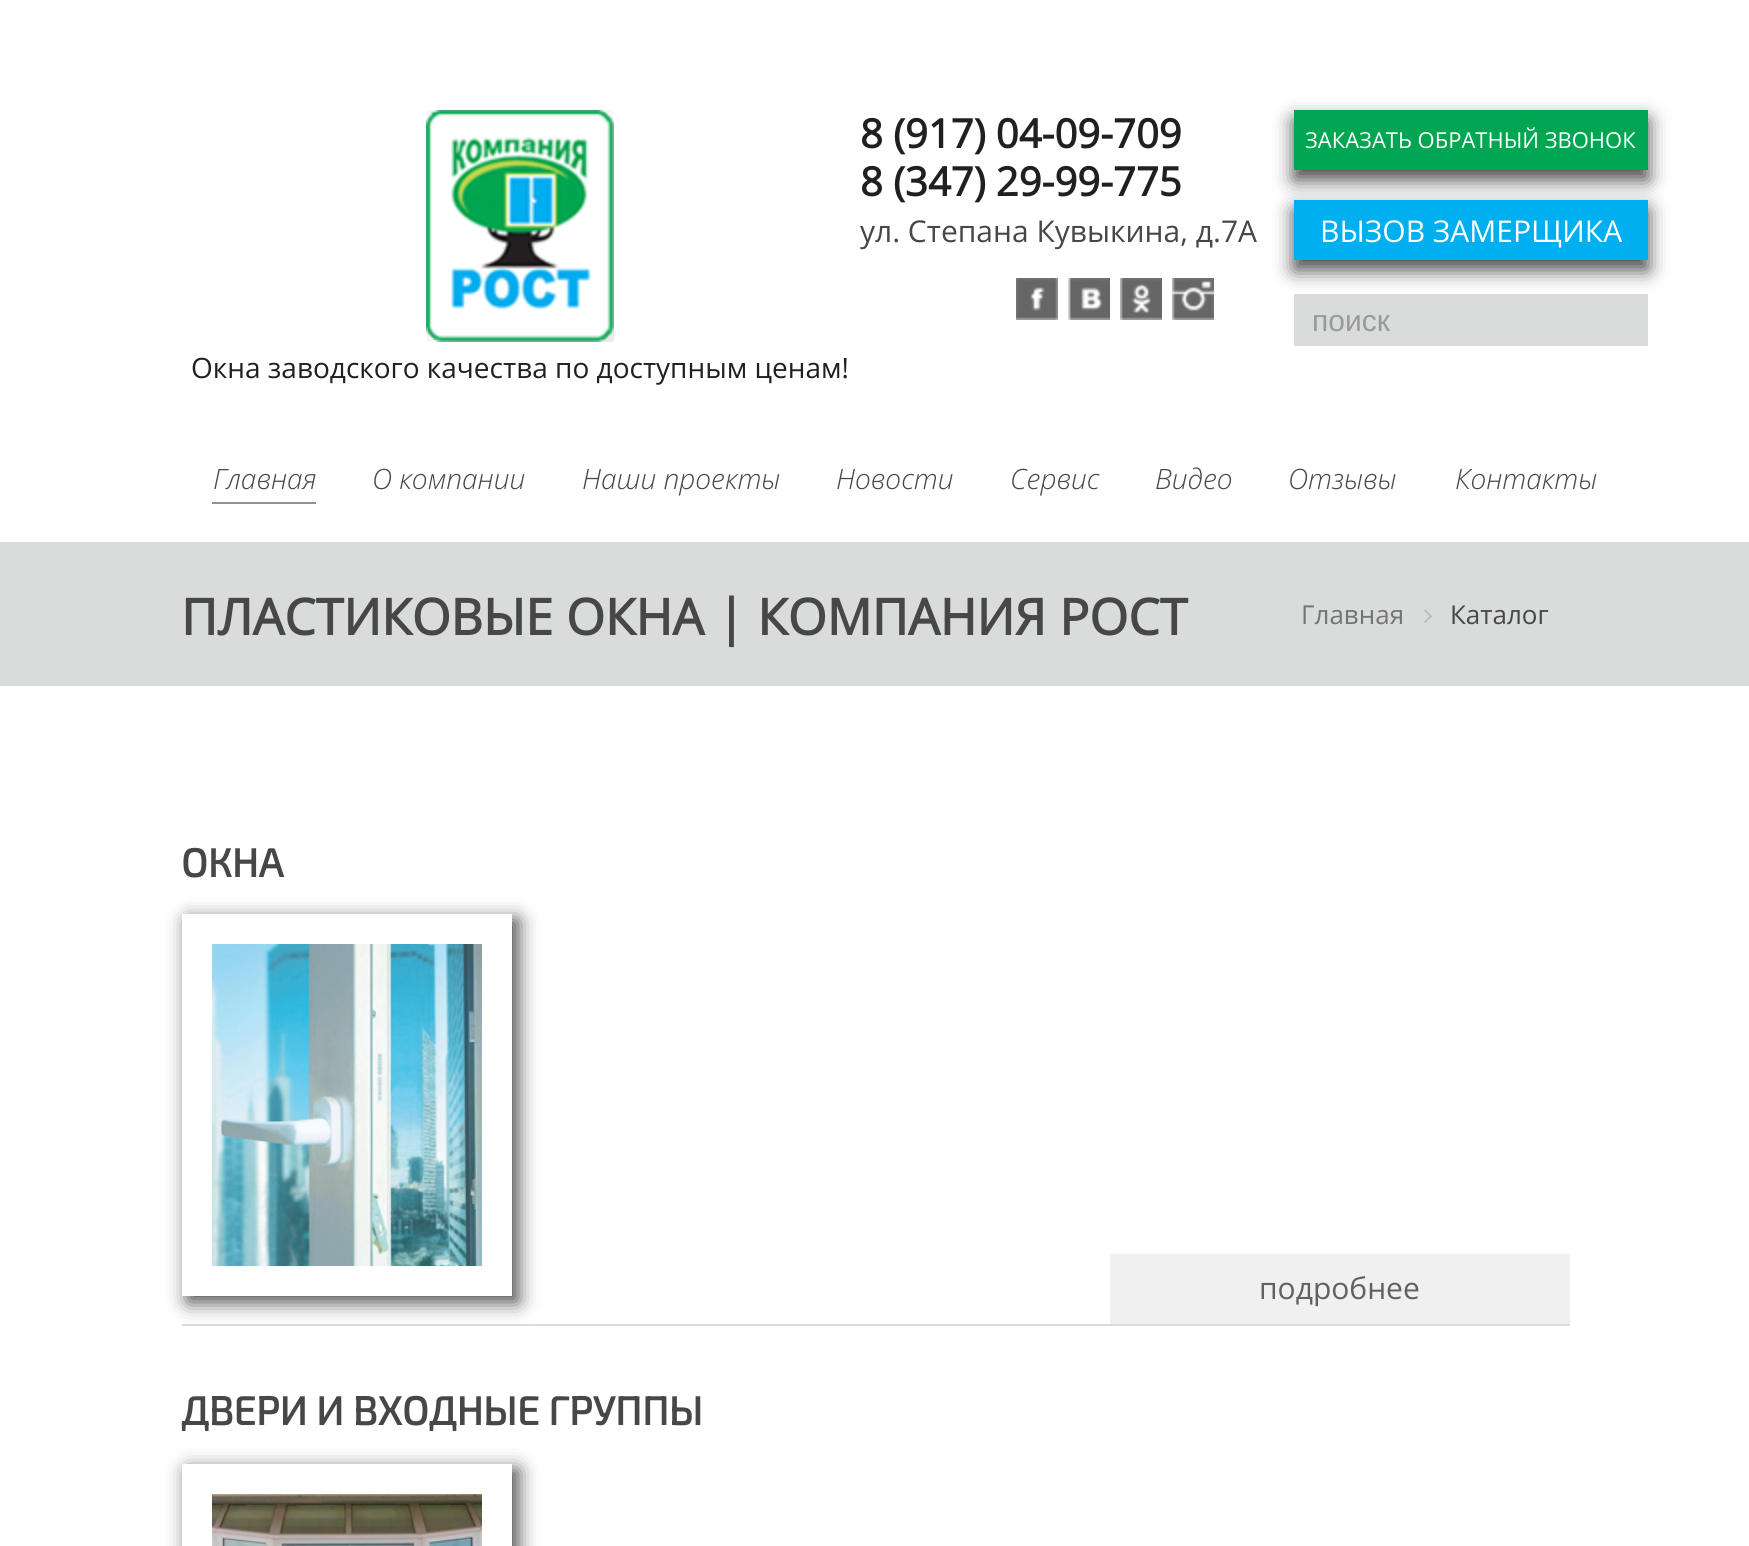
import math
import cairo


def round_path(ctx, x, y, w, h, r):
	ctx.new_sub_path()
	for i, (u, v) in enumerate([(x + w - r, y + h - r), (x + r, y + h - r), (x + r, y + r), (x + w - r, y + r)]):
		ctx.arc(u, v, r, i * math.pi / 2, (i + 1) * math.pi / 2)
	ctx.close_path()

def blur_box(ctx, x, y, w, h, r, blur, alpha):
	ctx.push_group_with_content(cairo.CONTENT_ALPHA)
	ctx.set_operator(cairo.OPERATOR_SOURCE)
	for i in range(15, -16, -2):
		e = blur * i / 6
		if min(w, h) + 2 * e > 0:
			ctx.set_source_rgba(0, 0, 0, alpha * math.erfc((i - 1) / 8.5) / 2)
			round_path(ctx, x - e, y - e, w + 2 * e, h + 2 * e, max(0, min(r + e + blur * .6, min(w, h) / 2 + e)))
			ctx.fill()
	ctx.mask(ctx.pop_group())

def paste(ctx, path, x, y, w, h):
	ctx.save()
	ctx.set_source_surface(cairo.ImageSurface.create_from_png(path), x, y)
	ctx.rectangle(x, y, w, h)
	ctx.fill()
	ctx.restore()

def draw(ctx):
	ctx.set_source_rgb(1, 1, 1)
	ctx.paint()
	ctx.select_font_face('Open Sans', cairo.FONT_SLANT_NORMAL, cairo.FONT_WEIGHT_BOLD)
	ctx.set_font_size(40)
	ctx.set_source_rgb(0.125, 0.125, 0.125)
	ctx.move_to(860, 148)
	ctx.show_text('8 (917) 04-09-709')
	ctx.move_to(860, 196)
	ctx.show_text('8 (347) 29-99-775')
	ctx.select_font_face('Open Sans')
	ctx.set_font_size(30)
	ctx.set_source_rgb(0.278, 0.278, 0.278)
	ctx.move_to(860, 242)
	ctx.show_text('ул. Степана Кувыкина, д.7А')
	paste(ctx, 'media/1.png', 1016, 278, 42, 42)
	paste(ctx, 'media/2.png', 1068, 278, 42, 42)
	paste(ctx, 'media/3.png', 1120, 278, 42, 42)
	paste(ctx, 'media/4.png', 1172, 278, 42, 42)
	ctx.set_source_rgb(0.278, 0.278, 0.278)
	blur_box(ctx, 1294, 120, 354, 60, 0, 10, 1)
	ctx.set_source_rgb(0, 0.651, 0.318)
	ctx.rectangle(1294, 110, 354, 60)
	ctx.fill()
	ctx.set_font_size(22)
	ctx.set_source_rgb(1, 1, 1)
	ctx.move_to(1305, 148)
	ctx.show_text('ЗАКАЗАТЬ ОБРАТНЫЙ ЗВОНОК')
	ctx.set_source_rgb(0.278, 0.278, 0.278)
	blur_box(ctx, 1294, 210, 354, 60, 0, 10, 1)
	ctx.set_source_rgb(0, 0.686, 0.937)
	ctx.rectangle(1294, 200, 354, 60)
	ctx.fill()
	ctx.set_font_size(30)
	ctx.set_source_rgb(1, 1, 1)
	ctx.move_to(1320, 242)
	ctx.show_text('ВЫЗОВ ЗАМЕРЩИКА')
	ctx.set_source_rgb(0.851, 0.863, 0.855)
	ctx.rectangle(1294, 294, 354, 52)
	ctx.fill()
	ctx.select_font_face('Liberation Sans')
	ctx.set_source_rgb(0.6, 0.6, 0.6)
	ctx.move_to(1312, 331)
	ctx.show_text('поиск')
	paste(ctx, 'media/5.png', 426, 110, 188, 232)
	ctx.select_font_face('Open Sans')
	ctx.set_font_size(28)
	ctx.set_source_rgb(0.125, 0.125, 0.125)
	ctx.move_to(191, 378)
	ctx.show_text('Окна заводского качества по доступным ценам!')
	ctx.select_font_face('Open Sans Light', cairo.FONT_SLANT_ITALIC)
	ctx.set_source_rgb(0.278, 0.278, 0.278)
	ctx.move_to(213, 489)
	ctx.show_text('Главная')
	ctx.set_source_rgb(0.573, 0.573, 0.573)
	ctx.rectangle(212, 502, 104, 2)
	ctx.fill()
	ctx.set_source_rgb(0.278, 0.278, 0.278)
	for x, y, s in [
		(372, 489, 'О компании'),
		(582, 489, 'Наши проекты'),
		(836, 489, 'Новости'),
		(1010, 489, 'Сервис'),
		(1155, 489, 'Видео'),
		(1288, 489, 'Отзывы'),
		(1455, 489, 'Контакты'),
	]:
		ctx.move_to(x, y)
		ctx.show_text(s)
	ctx.set_source_rgb(0.851, 0.863, 0.855)
	ctx.rectangle(0, 542, 1749, 144)
	ctx.fill()
	ctx.select_font_face('Open Sans', cairo.FONT_SLANT_NORMAL, cairo.FONT_WEIGHT_BOLD)
	ctx.set_font_size(50)
	ctx.set_source_rgb(0.278, 0.278, 0.278)
	ctx.move_to(181, 635)
	ctx.show_text('ПЛАСТИКОВЫЕ ОКНА | КОМПАНИЯ РОСТ')
	ctx.select_font_face('Open Sans')
	ctx.set_font_size(26)
	ctx.set_source_rgb(0.455, 0.455, 0.455)
	ctx.move_to(1301, 624)
	ctx.show_text('Главная')
	paste(ctx, 'media/6.png', 1424, 609, 8, 14)
	ctx.set_source_rgb(0.278, 0.278, 0.278)
	ctx.move_to(1450, 624)
	ctx.show_text('Каталог')
	ctx.select_font_face('Exo 2', cairo.FONT_SLANT_NORMAL, cairo.FONT_WEIGHT_BOLD)
	ctx.set_font_size(40)
	ctx.move_to(181, 877)
	ctx.show_text('ОКНА')
	ctx.save()
	ctx.set_fill_rule(cairo.FILL_RULE_EVEN_ODD)
	ctx.new_path()
	ctx.move_to(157, 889)
	ctx.line_to(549, 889)
	ctx.line_to(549, 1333)
	ctx.line_to(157, 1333)
	ctx.close_path()
	ctx.move_to(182, 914)
	ctx.line_to(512, 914)
	ctx.line_to(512, 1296)
	ctx.line_to(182, 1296)
	ctx.close_path()
	ctx.clip()
	ctx.set_source_rgb(0.278, 0.278, 0.278)
	blur_box(ctx, 188, 920, 330, 382, 0, 10, 1)
	ctx.restore()
	paste(ctx, 'media/7.png', 212, 944, 270, 322)
	ctx.set_source_rgb(0.851, 0.863, 0.855)
	ctx.rectangle(182, 1324, 1388, 2)
	ctx.fill()
	ctx.set_source_rgb(0.941, 0.941, 0.941)
	ctx.rectangle(1110, 1254, 460, 70)
	ctx.fill()
	ctx.select_font_face('Open Sans')
	ctx.set_font_size(30)
	ctx.set_source_rgb(0.384, 0.376, 0.376)
	ctx.move_to(1259, 1299)
	ctx.show_text('подробнее')
	ctx.select_font_face('Exo 2', cairo.FONT_SLANT_NORMAL, cairo.FONT_WEIGHT_BOLD)
	ctx.set_font_size(40)
	ctx.set_source_rgb(0.278, 0.278, 0.278)
	ctx.move_to(181, 1425)
	ctx.show_text('ДВЕРИ И ВХОДНЫЕ ГРУППЫ')
	ctx.save()
	ctx.set_fill_rule(cairo.FILL_RULE_EVEN_ODD)
	ctx.new_path()
	ctx.move_to(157, 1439)
	ctx.line_to(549, 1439)
	ctx.line_to(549, 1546)
	ctx.line_to(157, 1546)
	ctx.close_path()
	ctx.move_to(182, 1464)
	ctx.line_to(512, 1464)
	ctx.line_to(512, 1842)
	ctx.line_to(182, 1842)
	ctx.close_path()
	ctx.clip()
	ctx.set_source_rgb(0.278, 0.278, 0.278)
	blur_box(ctx, 188, 1470, 330, 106, 0, 10, 1)
	ctx.restore()
	paste(ctx, 'media/8.png', 212, 1494, 270, 52)


surface = cairo.ImageSurface(cairo.FORMAT_RGB24, 1749, 1546)
ctx = cairo.Context(surface)
options = cairo.FontOptions()
options.set_hint_metrics(cairo.HINT_METRICS_OFF)
options.set_hint_style(cairo.HINT_STYLE_NONE)
ctx.set_font_options(options)
ctx.set_miter_limit(4)
draw(ctx)
surface.write_to_png('image.png')
